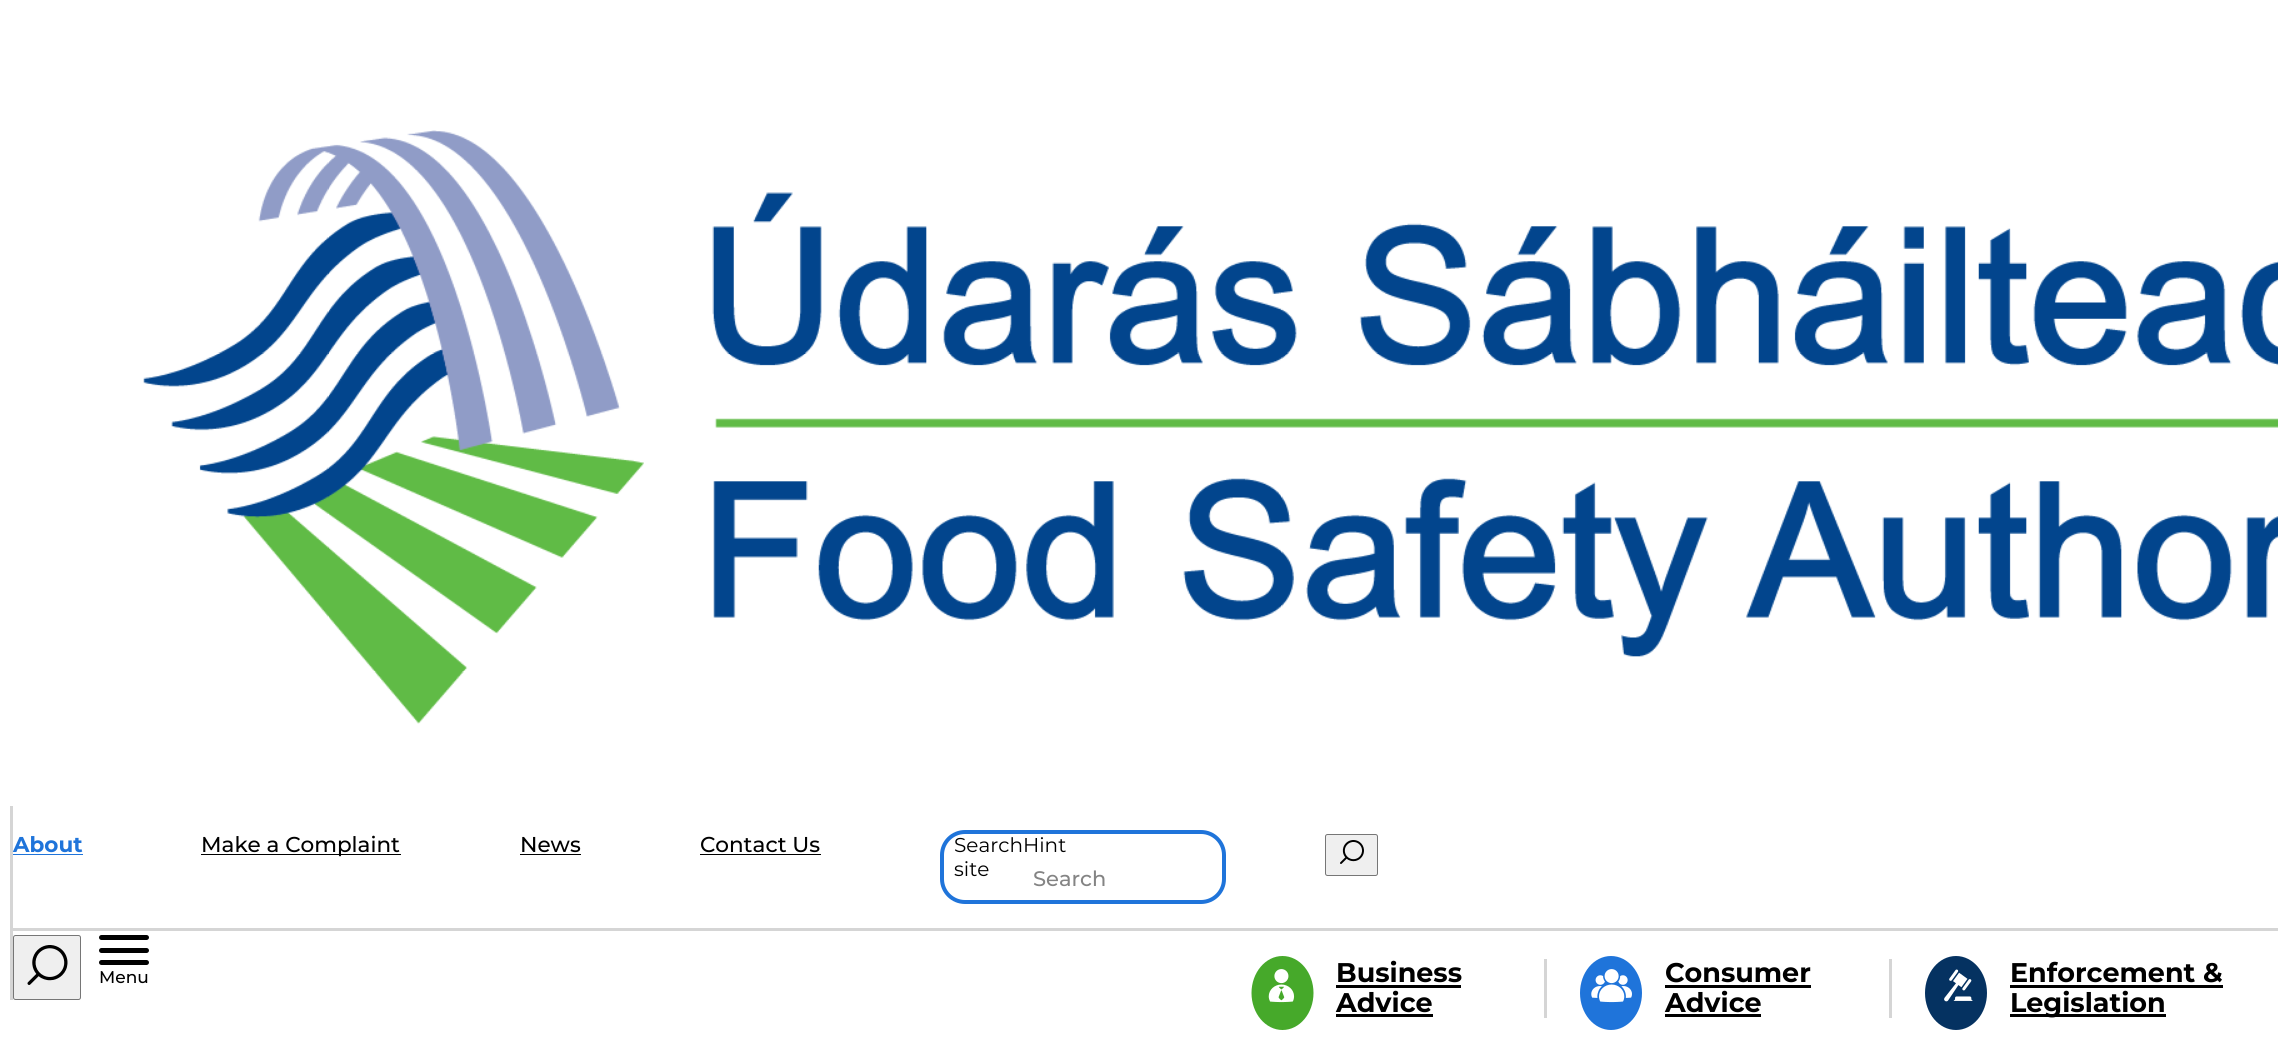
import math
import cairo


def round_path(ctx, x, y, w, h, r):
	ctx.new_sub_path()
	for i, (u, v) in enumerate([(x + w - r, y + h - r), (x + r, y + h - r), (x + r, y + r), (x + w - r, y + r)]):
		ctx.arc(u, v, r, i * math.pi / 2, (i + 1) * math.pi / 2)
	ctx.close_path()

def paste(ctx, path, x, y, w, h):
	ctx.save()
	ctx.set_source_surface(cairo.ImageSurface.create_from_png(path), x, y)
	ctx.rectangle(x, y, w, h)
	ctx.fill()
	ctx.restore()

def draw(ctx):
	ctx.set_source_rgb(1, 1, 1)
	ctx.paint()
	paste(ctx, 'media/1.png', 143, 130, 2135, 594)
	ctx.set_source_rgb(0.835, 0.835, 0.835)
	ctx.rectangle(10, 806, 3, 194)
	ctx.fill()
	ctx.rectangle(13, 928, 2265, 3)
	ctx.fill()
	ctx.select_font_face('Montserrat', cairo.FONT_SLANT_NORMAL, cairo.FONT_WEIGHT_BOLD)
	ctx.set_font_size(21.5)
	ctx.set_source_rgb(0.122, 0.455, 0.855)
	ctx.move_to(13, 852)
	ctx.show_text('About')
	ctx.rectangle(13, 854, 70, 1)
	ctx.fill()
	ctx.set_source_rgb(0, 0, 0)
	ctx.rectangle(201, 854, 200, 1)
	ctx.fill()
	ctx.select_font_face('Montserrat Medium')
	ctx.move_to(201, 852)
	ctx.show_text('Make a Complaint')
	ctx.move_to(520, 852)
	ctx.show_text('News')
	ctx.rectangle(520, 854, 61, 1)
	ctx.fill()
	ctx.move_to(700, 852)
	ctx.show_text('Contact Us')
	ctx.rectangle(700, 854, 121, 1)
	ctx.fill()
	round_path(ctx, 942, 832, 282, 70, 23)
	ctx.set_source_rgb(0.122, 0.455, 0.855)
	ctx.set_line_width(4)
	ctx.stroke()
	ctx.select_font_face('Montserrat')
	ctx.set_font_size(20)
	ctx.set_source_rgb(0, 0, 0)
	ctx.move_to(954, 852)
	ctx.show_text('SearchHint')
	ctx.move_to(954, 876)
	ctx.show_text('site')
	ctx.select_font_face('Montserrat Medium')
	ctx.set_font_size(21)
	ctx.set_source_rgb(0.518, 0.518, 0.518)
	ctx.move_to(1033, 886)
	ctx.show_text('Search')
	ctx.set_source_rgb(0.937, 0.937, 0.937)
	round_path(ctx, 1325.5, 834.5, 52, 41, 2)
	ctx.fill_preserve()
	ctx.set_source_rgb(0.463, 0.463, 0.463)
	ctx.set_line_width(1)
	ctx.stroke()
	paste(ctx, 'media/2.png', 1340, 840, 24, 24)
	ctx.set_source_rgb(0.937, 0.937, 0.937)
	round_path(ctx, 13.5, 935.5, 67, 64, 2)
	ctx.fill_preserve()
	ctx.set_source_rgb(0.463, 0.463, 0.463)
	ctx.stroke()
	paste(ctx, 'media/3.png', 27, 945, 41, 40)
	ctx.set_source_rgb(0, 0, 0)
	round_path(ctx, 99, 935, 50, 5, 2.5)
	ctx.fill()
	round_path(ctx, 99, 948, 50, 5, 2.5)
	ctx.fill()
	round_path(ctx, 99, 960, 50, 5, 2.5)
	ctx.fill()
	ctx.set_font_size(17)
	ctx.move_to(99, 983)
	ctx.show_text('Menu')
	ctx.set_source_rgb(0.275, 0.663, 0.165)
	ctx.new_path()
	ctx.move_to(1282.5, 956)
	ctx.curve_to(1299.5, 956, 1313.5, 972.5, 1313.5, 993)
	ctx.curve_to(1313.5, 1013.5, 1299.5, 1030, 1282.5, 1030)
	ctx.curve_to(1265.5, 1030, 1251.5, 1013.5, 1251.5, 993)
	ctx.curve_to(1251.5, 972.5, 1265.5, 956, 1282.5, 956)
	ctx.close_path()
	ctx.fill()
	paste(ctx, 'media/4.png', 1268, 969, 27, 34)
	ctx.select_font_face('Montserrat', cairo.FONT_SLANT_NORMAL, cairo.FONT_WEIGHT_BOLD)
	ctx.set_font_size(27)
	ctx.set_source_rgb(0, 0, 0)
	ctx.move_to(1336, 982)
	ctx.show_text('Business')
	ctx.rectangle(1336, 985, 125, 3)
	ctx.fill()
	ctx.move_to(1336, 1012)
	ctx.show_text('Advice')
	ctx.rectangle(1336, 1014, 97, 3)
	ctx.fill()
	ctx.set_source_rgb(0.835, 0.835, 0.835)
	ctx.rectangle(1544, 959, 3, 59)
	ctx.fill()
	ctx.set_source_rgb(0.122, 0.455, 0.855)
	ctx.new_path()
	ctx.move_to(1611, 956)
	ctx.curve_to(1628, 956, 1642, 972.5, 1642, 993)
	ctx.curve_to(1642, 1013.5, 1628, 1030, 1611, 1030)
	ctx.curve_to(1594, 1030, 1580, 1013.5, 1580, 993)
	ctx.curve_to(1580, 972.5, 1594, 956, 1611, 956)
	ctx.close_path()
	ctx.fill()
	paste(ctx, 'media/5.png', 1591, 969, 41, 34)
	ctx.set_source_rgb(0, 0, 0)
	ctx.move_to(1665, 982)
	ctx.show_text('Consumer')
	ctx.rectangle(1665, 985, 146, 3)
	ctx.fill()
	ctx.move_to(1665, 1012)
	ctx.show_text('Advice')
	ctx.rectangle(1665, 1014, 96, 3)
	ctx.fill()
	ctx.set_source_rgb(0.835, 0.835, 0.835)
	ctx.rectangle(1889, 959, 3, 59)
	ctx.fill()
	ctx.set_source_rgb(0.02, 0.196, 0.38)
	ctx.new_path()
	ctx.move_to(1956, 956)
	ctx.curve_to(1973, 956, 1987, 972.5, 1987, 993)
	ctx.curve_to(1987, 1013.5, 1973, 1030, 1956, 1030)
	ctx.curve_to(1939, 1030, 1925, 1013.5, 1925, 993)
	ctx.curve_to(1925, 972.5, 1939, 956, 1956, 956)
	ctx.close_path()
	ctx.fill()
	paste(ctx, 'media/6.png', 1944, 969, 29, 33)
	ctx.set_source_rgb(0, 0, 0)
	ctx.move_to(2010, 982)
	ctx.show_text('Enforcement &')
	ctx.rectangle(2010, 985, 213, 3)
	ctx.fill()
	ctx.rectangle(2010, 1014, 156, 3)
	ctx.fill()
	ctx.move_to(2010, 1012)
	ctx.show_text('Legislation')


surface = cairo.ImageSurface(cairo.FORMAT_RGB24, 2278, 1050)
ctx = cairo.Context(surface)
options = cairo.FontOptions()
options.set_hint_metrics(cairo.HINT_METRICS_OFF)
options.set_hint_style(cairo.HINT_STYLE_NONE)
ctx.set_font_options(options)
ctx.set_miter_limit(4)
draw(ctx)
surface.write_to_png('image.png')
